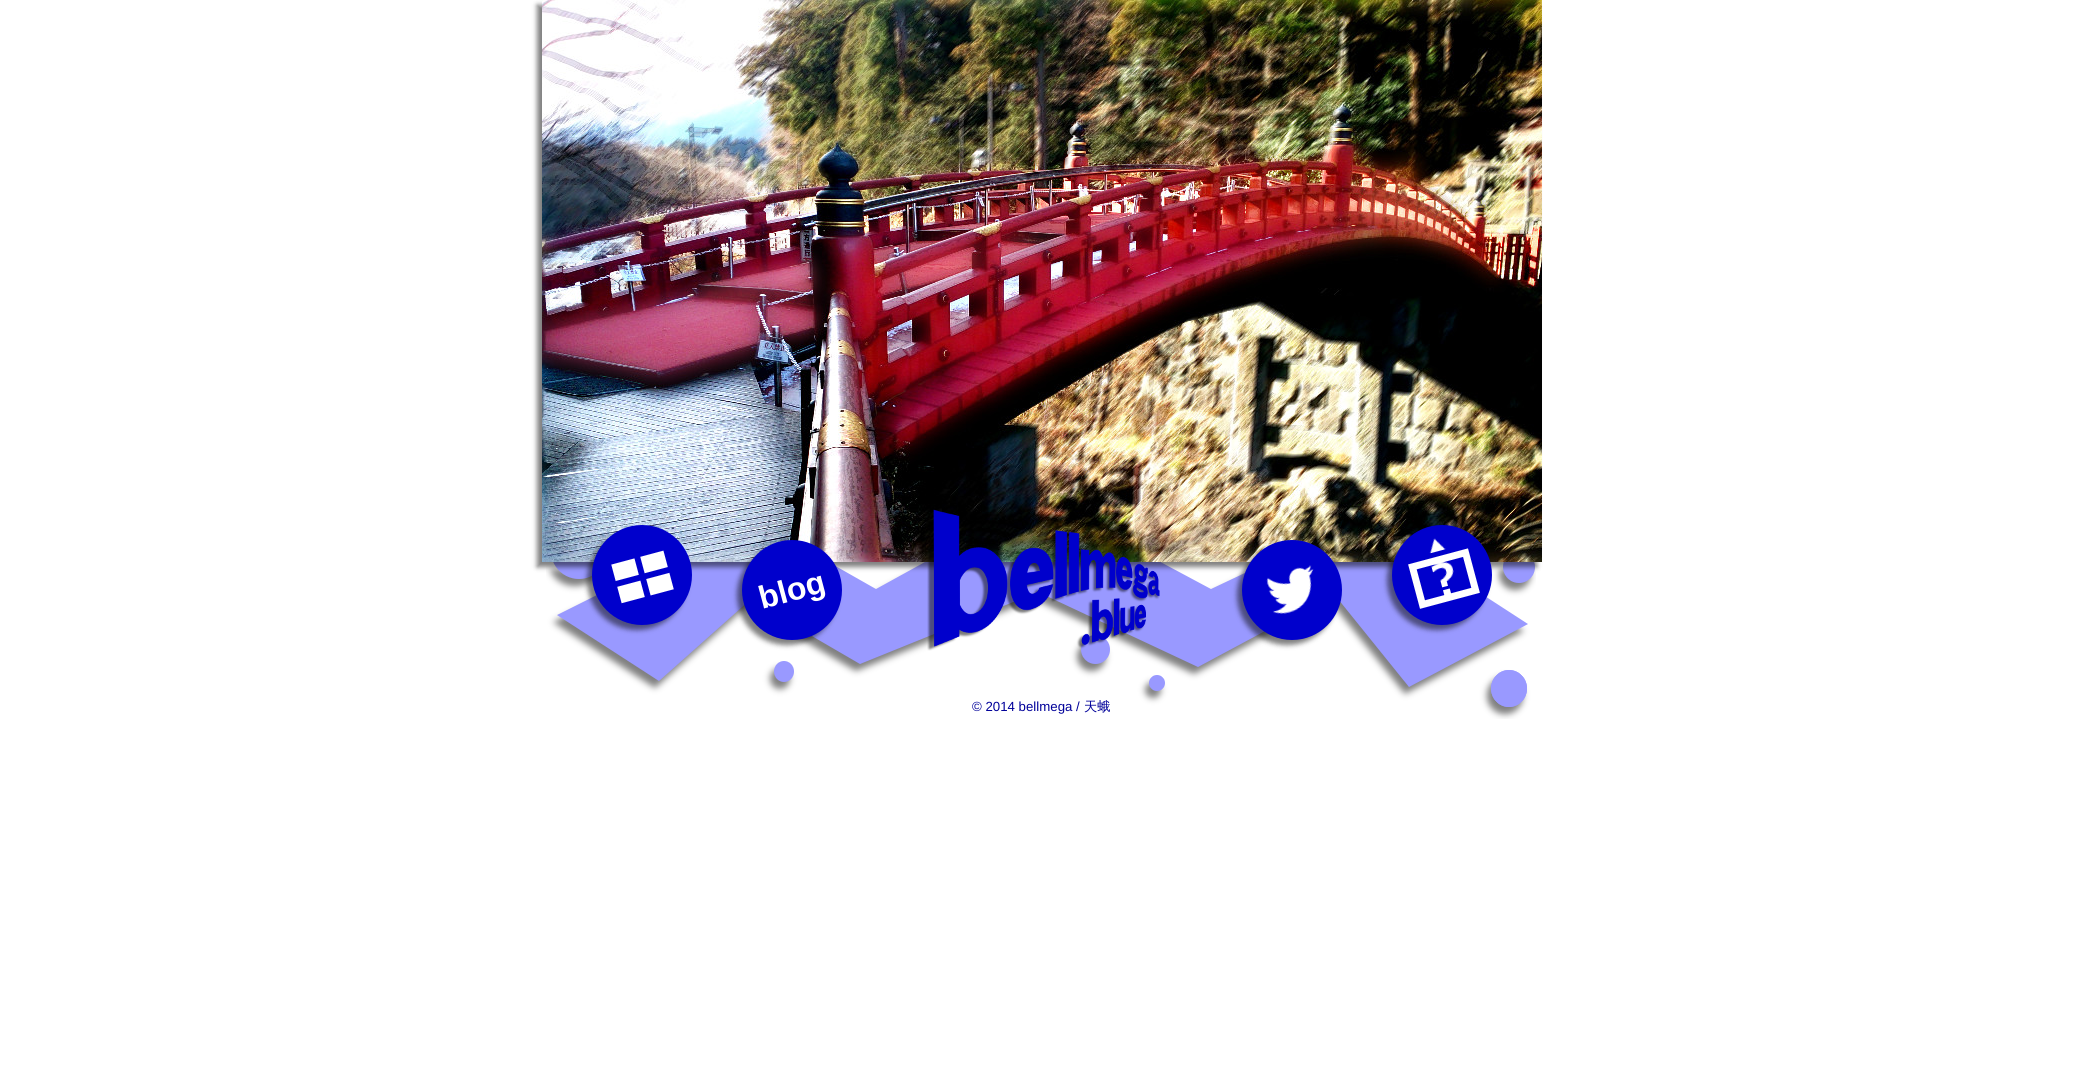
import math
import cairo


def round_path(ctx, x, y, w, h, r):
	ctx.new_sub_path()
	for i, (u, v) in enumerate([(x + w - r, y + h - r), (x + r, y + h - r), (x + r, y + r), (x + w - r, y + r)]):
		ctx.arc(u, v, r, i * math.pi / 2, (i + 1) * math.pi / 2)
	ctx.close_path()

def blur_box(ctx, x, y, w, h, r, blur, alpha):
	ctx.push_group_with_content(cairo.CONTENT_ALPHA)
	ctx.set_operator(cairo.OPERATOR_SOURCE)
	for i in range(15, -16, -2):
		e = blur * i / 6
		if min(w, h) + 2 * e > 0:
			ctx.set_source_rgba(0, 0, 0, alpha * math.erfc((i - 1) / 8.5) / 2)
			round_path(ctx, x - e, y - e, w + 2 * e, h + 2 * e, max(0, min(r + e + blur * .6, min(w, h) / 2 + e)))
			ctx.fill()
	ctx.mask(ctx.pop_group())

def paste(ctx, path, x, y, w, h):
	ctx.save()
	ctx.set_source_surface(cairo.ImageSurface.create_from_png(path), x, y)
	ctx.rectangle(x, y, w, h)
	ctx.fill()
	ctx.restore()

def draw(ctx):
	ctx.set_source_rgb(1, 1, 1)
	ctx.paint()
	paste(ctx, 'media/6.png', 546, 562, 990, 157)
	ctx.set_source_rgb(0, 0, 0)
	blur_box(ctx, 537, 5, 1000, 562, 0, 2.5, 0.5)
	paste(ctx, 'media/1.png', 542, 0, 1000, 562)
	blur_box(ctx, 587, 530, 100, 100, 50, 2.5, 0.5)
	ctx.set_source_rgb(0, 0, 0.8)
	ctx.arc(642, 575, 50, 0, 2 * math.pi)
	ctx.fill()
	paste(ctx, 'media/2.png', 611, 550, 63, 54)
	ctx.set_source_rgb(0, 0, 0)
	blur_box(ctx, 737, 545, 100, 100, 50, 2.5, 0.5)
	ctx.set_source_rgb(0, 0, 0.8)
	ctx.arc(792, 590, 50, 0, 2 * math.pi)
	ctx.fill()
	ctx.select_font_face('Liberation Sans', cairo.FONT_SLANT_NORMAL, cairo.FONT_WEIGHT_BOLD)
	ctx.set_font_size(32)
	ctx.set_source_rgb(1, 1, 1)
	ctx.save()
	ctx.translate(762, 609)
	ctx.rotate(-15 * math.pi / 180)
	ctx.move_to(0, 0)
	ctx.show_text('blog')
	ctx.restore()
	ctx.set_source_rgb(0, 0, 0)
	blur_box(ctx, 1237, 545, 100, 100, 50, 2.5, 0.5)
	ctx.set_source_rgb(0, 0, 0.8)
	ctx.arc(1292, 590, 50, 0, 2 * math.pi)
	ctx.fill()
	paste(ctx, 'media/3.png', 1266, 565, 48, 49)
	ctx.set_source_rgb(0, 0, 0)
	blur_box(ctx, 1387, 530, 100, 100, 50, 2.5, 0.5)
	ctx.set_source_rgb(0, 0, 0.8)
	ctx.arc(1442, 575, 50, 0, 2 * math.pi)
	ctx.fill()
	paste(ctx, 'media/4.png', 1408, 538, 72, 71)
	paste(ctx, 'media/5.png', 927, 509, 233, 142)
	ctx.select_font_face('Liberation Sans')
	ctx.set_font_size(13.25)
	ctx.set_source_rgb(0, 0, 0.6)
	ctx.move_to(972, 711)
	ctx.show_text('© 2014 bellmega /')
	ctx.select_font_face('WenQuanYi Zen Hei Medium')
	ctx.move_to(1084, 711)
	ctx.show_text('天蛾')


surface = cairo.ImageSurface(cairo.FORMAT_RGB24, 2083, 1078)
ctx = cairo.Context(surface)
options = cairo.FontOptions()
options.set_hint_metrics(cairo.HINT_METRICS_OFF)
options.set_hint_style(cairo.HINT_STYLE_NONE)
ctx.set_font_options(options)
ctx.set_miter_limit(4)
draw(ctx)
surface.write_to_png('image.png')
